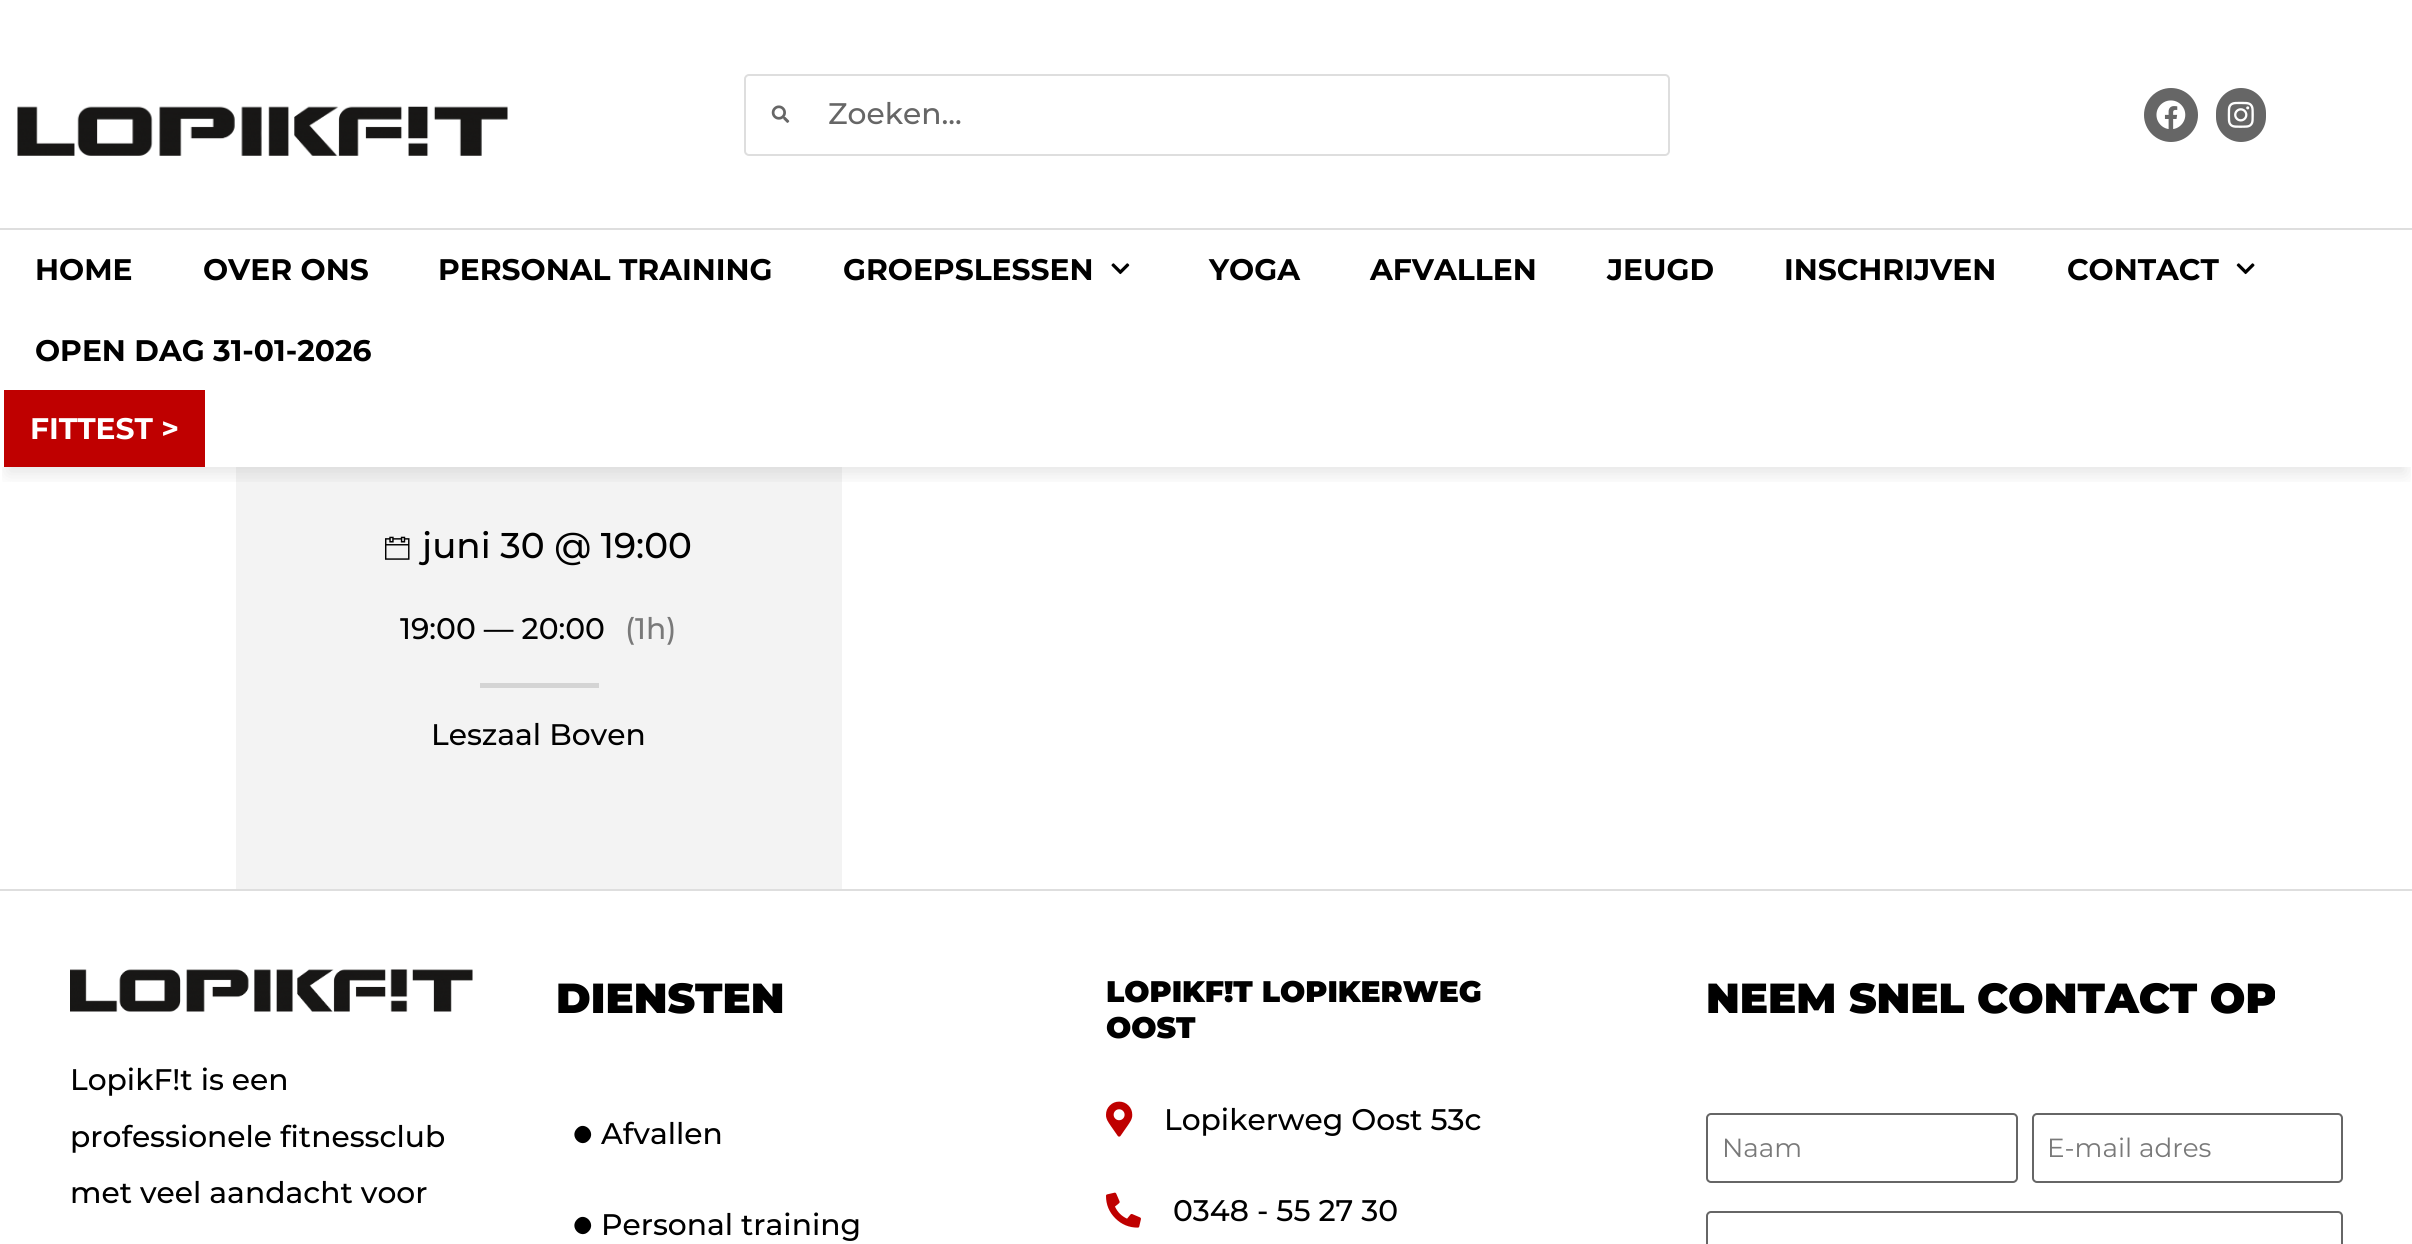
import math
import cairo


def round_path(ctx, x, y, w, h, r):
	ctx.new_sub_path()
	for i, (u, v) in enumerate([(x + w - r, y + h - r), (x + r, y + h - r), (x + r, y + r), (x + w - r, y + r)]):
		ctx.arc(u, v, r, i * math.pi / 2, (i + 1) * math.pi / 2)
	ctx.close_path()

def blur_box(ctx, x, y, w, h, r, blur, alpha):
	ctx.push_group_with_content(cairo.CONTENT_ALPHA)
	ctx.set_operator(cairo.OPERATOR_SOURCE)
	for i in range(15, -16, -2):
		e = blur * i / 6
		if min(w, h) + 2 * e > 0:
			ctx.set_source_rgba(0, 0, 0, alpha * math.erfc((i - 1) / 8.5) / 2)
			round_path(ctx, x - e, y - e, w + 2 * e, h + 2 * e, max(0, min(r + e + blur * .6, min(w, h) / 2 + e)))
			ctx.fill()
	ctx.mask(ctx.pop_group())

def paste(ctx, path, x, y, w, h):
	ctx.save()
	ctx.set_source_surface(cairo.ImageSurface.create_from_png(path), x, y)
	ctx.rectangle(x, y, w, h)
	ctx.fill()
	ctx.restore()

def draw(ctx):
	ctx.set_source_rgb(1, 1, 1)
	ctx.paint()
	paste(ctx, 'media/7.png', 385, 536, 25, 24)
	ctx.set_source_rgba(0, 0, 0, 0.05)
	ctx.rectangle(236, 467, 606, 422)
	ctx.fill()
	ctx.save()
	ctx.rectangle(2, 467, 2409, 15)
	ctx.clip()
	ctx.set_source_rgb(0, 0, 0)
	blur_box(ctx, 7, 21, 2399, 453, 0, 9, 0.1)
	ctx.restore()
	ctx.set_source_rgb(0.871, 0.871, 0.871)
	ctx.rectangle(0, 228, 2412, 2)
	ctx.fill()
	paste(ctx, 'media/1.png', 17, 106, 491, 50)
	round_path(ctx, 745, 75, 924, 80, 4)
	ctx.stroke()
	paste(ctx, 'media/2.png', 771, 105, 19, 18)
	ctx.select_font_face('Montserrat Medium')
	ctx.set_font_size(29.75)
	ctx.set_source_rgb(0.4, 0.4, 0.4)
	ctx.move_to(828, 124)
	ctx.show_text('Zoeken...')
	ctx.new_path()
	ctx.arc(2171, 115, 27, 0, 2 * math.pi)
	ctx.fill()
	paste(ctx, 'media/3.png', 2156, 100, 30, 29)
	round_path(ctx, 2216, 88, 50, 54, 25)
	ctx.fill()
	paste(ctx, 'media/4.png', 2227, 101, 27, 27)
	ctx.select_font_face('Montserrat', cairo.FONT_SLANT_NORMAL, cairo.FONT_WEIGHT_BOLD)
	ctx.set_source_rgb(0, 0, 0)
	for x, y, s in [
		(35, 280, 'HOME'),
		(203, 280, 'OVER ONS'),
		(438, 280, 'PERSONAL TRAINING'),
		(843, 280, 'GROEPSLESSEN'),
	]:
		ctx.move_to(x, y)
		ctx.show_text(s)
	paste(ctx, 'media/5.png', 1111, 263, 19, 12)
	for x, y, s in [
		(1209, 280, 'YOGA'),
		(1370, 280, 'AFVALLEN'),
		(1607, 280, 'JEUGD'),
		(1784, 280, 'INSCHRIJVEN'),
		(2067, 280, 'CONTACT'),
	]:
		ctx.move_to(x, y)
		ctx.show_text(s)
	paste(ctx, 'media/6.png', 2236, 263, 19, 12)
	ctx.move_to(35, 361)
	ctx.show_text('OPEN DAG 31-01-2026')
	ctx.set_source_rgb(0.749, 0, 0)
	ctx.rectangle(4, 390, 201, 77)
	ctx.fill()
	ctx.set_source_rgb(1, 1, 1)
	ctx.move_to(30, 439)
	ctx.show_text('FITTEST >')
	ctx.select_font_face('Montserrat Medium')
	ctx.set_font_size(35.75)
	ctx.set_source_rgb(0, 0, 0)
	ctx.move_to(422, 558)
	ctx.show_text('juni 30 @ 19:00')
	ctx.set_font_size(29.75)
	ctx.move_to(400, 639)
	ctx.show_text('19:00 — 20:00')
	ctx.set_source_rgb(0.475, 0.475, 0.475)
	ctx.move_to(625, 639)
	ctx.show_text('(1h)')
	ctx.set_source_rgb(0.831, 0.831, 0.831)
	ctx.rectangle(480, 683, 119, 5)
	ctx.fill()
	ctx.set_source_rgb(0, 0, 0)
	ctx.move_to(431, 745)
	ctx.show_text('Leszaal Boven')
	ctx.set_source_rgb(0.871, 0.871, 0.871)
	ctx.rectangle(0, 889, 2412, 2)
	ctx.fill()
	paste(ctx, 'media/8.png', 70, 969, 403, 43)
	ctx.set_source_rgb(0, 0, 0)
	for x, y, s in [
		(70, 1090, 'LopikF!t is een'),
		(70, 1147, 'professionele fitnessclub'),
		(70, 1203, 'met veel aandacht voor'),
	]:
		ctx.move_to(x, y)
		ctx.show_text(s)
	ctx.select_font_face('Montserrat Black')
	ctx.set_font_size(42)
	ctx.move_to(556, 1013)
	ctx.show_text('DIENSTEN')
	ctx.new_path()
	ctx.move_to(577, 1128.5)
	ctx.curve_to(584.5, 1120.5, 596.5, 1132.5, 588.5, 1140.5)
	ctx.curve_to(581, 1148.5, 569, 1136.5, 577, 1128.5)
	ctx.close_path()
	ctx.fill()
	ctx.select_font_face('Montserrat Medium')
	ctx.set_font_size(29.75)
	ctx.move_to(601, 1144)
	ctx.show_text('Afvallen')
	ctx.new_path()
	ctx.move_to(577, 1219.5)
	ctx.curve_to(584.5, 1211.5, 596.5, 1223.5, 588.5, 1231.5)
	ctx.curve_to(581, 1239.5, 569, 1227.5, 577, 1219.5)
	ctx.close_path()
	ctx.fill()
	ctx.move_to(601, 1235)
	ctx.show_text('Personal training')
	ctx.select_font_face('Montserrat Black')
	ctx.move_to(1106, 1002)
	ctx.show_text('LOPIKF!T LOPIKERWEG')
	ctx.move_to(1106, 1038)
	ctx.show_text('OOST')
	paste(ctx, 'media/9.png', 1106, 1101, 27, 36)
	ctx.select_font_face('Montserrat Medium')
	ctx.move_to(1164, 1130)
	ctx.show_text('Lopikerweg Oost 53c')
	paste(ctx, 'media/10.png', 1106, 1192, 35, 36)
	ctx.move_to(1173, 1221)
	ctx.show_text('0348 - 55 27 30')
	ctx.select_font_face('Montserrat Black')
	ctx.set_font_size(42)
	ctx.move_to(1706, 1013)
	ctx.show_text('NEEM SNEL CONTACT OP')
	round_path(ctx, 1707, 1114, 310, 68, 4)
	ctx.set_source_rgb(0.4, 0.4, 0.4)
	ctx.stroke()
	ctx.select_font_face('Montserrat')
	ctx.set_font_size(26.25)
	ctx.set_source_rgb(0.475, 0.475, 0.475)
	ctx.move_to(1722, 1157)
	ctx.show_text('Naam')
	round_path(ctx, 2033, 1114, 309, 68, 4)
	ctx.set_source_rgb(0.4, 0.4, 0.4)
	ctx.stroke()
	ctx.set_source_rgb(0.475, 0.475, 0.475)
	ctx.move_to(2047, 1157)
	ctx.show_text('E-mail adres')
	round_path(ctx, 1707, 1212, 635, 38, 4)
	ctx.set_source_rgb(0.4, 0.4, 0.4)
	ctx.stroke()


surface = cairo.ImageSurface(cairo.FORMAT_RGB24, 2412, 1244)
ctx = cairo.Context(surface)
options = cairo.FontOptions()
options.set_hint_metrics(cairo.HINT_METRICS_OFF)
options.set_hint_style(cairo.HINT_STYLE_NONE)
ctx.set_font_options(options)
ctx.set_miter_limit(4)
draw(ctx)
surface.write_to_png('image.png')
